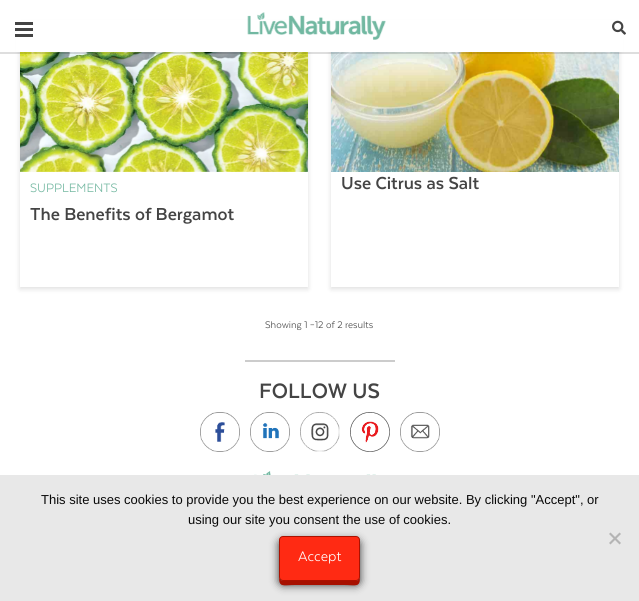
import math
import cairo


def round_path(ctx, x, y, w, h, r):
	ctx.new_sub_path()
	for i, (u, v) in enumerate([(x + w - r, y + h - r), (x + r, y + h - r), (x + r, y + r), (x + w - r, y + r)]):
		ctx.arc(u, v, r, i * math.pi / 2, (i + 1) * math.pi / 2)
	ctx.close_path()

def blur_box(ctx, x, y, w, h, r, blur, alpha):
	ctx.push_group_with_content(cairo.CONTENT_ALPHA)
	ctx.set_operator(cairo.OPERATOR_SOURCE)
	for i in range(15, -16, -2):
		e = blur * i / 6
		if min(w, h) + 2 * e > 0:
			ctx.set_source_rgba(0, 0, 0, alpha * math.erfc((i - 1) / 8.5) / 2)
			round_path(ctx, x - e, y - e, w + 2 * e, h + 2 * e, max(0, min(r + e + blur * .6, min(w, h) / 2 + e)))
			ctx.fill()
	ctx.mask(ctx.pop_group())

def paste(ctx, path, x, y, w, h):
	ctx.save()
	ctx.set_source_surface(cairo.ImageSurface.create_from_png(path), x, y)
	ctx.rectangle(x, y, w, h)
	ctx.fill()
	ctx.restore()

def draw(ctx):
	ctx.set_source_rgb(1, 1, 1)
	ctx.paint()
	ctx.save()
	ctx.set_fill_rule(cairo.FILL_RULE_EVEN_ODD)
	ctx.new_path()
	ctx.move_to(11, 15)
	ctx.line_to(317, 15)
	ctx.line_to(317, 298)
	ctx.line_to(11, 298)
	ctx.close_path()
	ctx.move_to(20, 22)
	ctx.line_to(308, 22)
	ctx.line_to(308, 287)
	ctx.line_to(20, 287)
	ctx.close_path()
	ctx.clip()
	ctx.set_source_rgb(0, 0, 0)
	blur_box(ctx, 20, 24, 288, 265, 0, 2.5, 0.13)
	ctx.restore()
	ctx.save()
	ctx.set_fill_rule(cairo.FILL_RULE_EVEN_ODD)
	ctx.new_path()
	ctx.move_to(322, 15)
	ctx.line_to(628, 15)
	ctx.line_to(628, 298)
	ctx.line_to(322, 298)
	ctx.close_path()
	ctx.move_to(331, 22)
	ctx.line_to(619, 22)
	ctx.line_to(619, 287)
	ctx.line_to(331, 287)
	ctx.close_path()
	ctx.clip()
	ctx.set_source_rgb(0, 0, 0)
	blur_box(ctx, 331, 24, 288, 265, 0, 2.5, 0.13)
	ctx.restore()
	ctx.set_source_rgb(1, 1, 1)
	ctx.rectangle(16, 20, 607, 32)
	ctx.fill()
	paste(ctx, 'media/3.png', 20, 52, 288, 120)
	paste(ctx, 'media/4.png', 331, 52, 288, 120)
	ctx.set_source_rgba(0, 0, 0, 0.13)
	ctx.rectangle(0, 52, 639, 2)
	ctx.fill()
	ctx.set_source_rgb(0.267, 0.267, 0.267)
	ctx.rectangle(15, 22, 18, 3)
	ctx.rectangle(15, 28, 18, 3)
	ctx.rectangle(15, 34, 18, 3)
	ctx.fill()
	paste(ctx, 'media/1.png', 247, 12, 139, 28)
	paste(ctx, 'media/2.png', 612, 20, 14, 15)
	ctx.select_font_face('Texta')
	ctx.set_font_size(14)
	ctx.set_source_rgb(0.447, 0.718, 0.627)
	ctx.move_to(30, 192)
	ctx.show_text('SUPPLEMENTS')
	ctx.select_font_face('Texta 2')
	ctx.set_font_size(20)
	ctx.set_source_rgb(0.267, 0.267, 0.267)
	ctx.move_to(30, 220)
	ctx.show_text('The Benefits of Bergamot')
	ctx.move_to(341, 189)
	ctx.show_text('Use Citrus as Salt')
	ctx.select_font_face('Texta')
	ctx.set_font_size(11)
	ctx.move_to(265, 328)
	ctx.show_text('Showing 1 –12 of 2 results')
	ctx.set_source_rgb(0.8, 0.8, 0.8)
	ctx.rectangle(245, 360, 150, 2)
	ctx.fill()
	ctx.select_font_face('Texta 2')
	ctx.set_font_size(24)
	ctx.set_source_rgb(0.267, 0.267, 0.267)
	ctx.move_to(259, 398)
	ctx.show_text('FOLLOW US')
	paste(ctx, 'media/5.png', 200, 412, 40, 40)
	paste(ctx, 'media/6.png', 250, 412, 40, 40)
	paste(ctx, 'media/7.png', 300, 412, 40, 40)
	paste(ctx, 'media/8.png', 350, 412, 40, 40)
	paste(ctx, 'media/9.png', 400, 412, 40, 40)
	paste(ctx, 'media/10.png', 254, 471, 122, 4)
	ctx.set_source_rgb(0.91, 0.91, 0.91)
	ctx.rectangle(0, 475, 639, 126)
	ctx.fill()
	ctx.select_font_face('Liberation Sans')
	ctx.set_font_size(13)
	ctx.set_source_rgb(0.039, 0.039, 0.039)
	ctx.move_to(41, 504)
	ctx.show_text('This site uses cookies to provide you the best experience on our website. By clicking "Accept", or')
	ctx.move_to(188, 524)
	ctx.show_text('using our site you consent the use of cookies.')
	ctx.set_source_rgb(0.706, 0.706, 0.706)
	ctx.new_path()
	ctx.move_to(619.5, 532.5)
	ctx.line_to(621, 534)
	ctx.line_to(610.5, 544.5)
	ctx.line_to(609, 543)
	ctx.close_path()
	ctx.fill()
	ctx.new_path()
	ctx.move_to(609, 534)
	ctx.line_to(610.5, 532.5)
	ctx.line_to(621, 543)
	ctx.line_to(619.5, 544.5)
	ctx.close_path()
	ctx.fill()
	ctx.set_source_rgb(0, 0, 0)
	blur_box(ctx, 279, 540, 81, 45, 4, 4.5, 0.75)
	ctx.set_source_rgb(0.655, 0.063, 0)
	ctx.new_path()
	ctx.move_to(279, 577)
	ctx.curve_to(279, 588, 283, 585, 295, 585)
	ctx.line_to(344, 585)
	ctx.curve_to(356, 585, 360, 588, 360, 577)
	ctx.curve_to(360, 579, 358, 581, 356, 581)
	ctx.line_to(283, 581)
	ctx.curve_to(281, 581, 279, 579, 279, 577)
	ctx.close_path()
	ctx.fill()
	ctx.set_source_rgb(1, 0.165, 0.075)
	round_path(ctx, 279.5, 536.5, 80, 44, 3.5)
	ctx.fill_preserve()
	ctx.set_source_rgb(0.675, 0.067, 0)
	ctx.set_line_width(1)
	ctx.stroke()
	ctx.select_font_face('Texta')
	ctx.set_font_size(16)
	ctx.set_source_rgb(1, 1, 1)
	ctx.move_to(298, 561)
	ctx.show_text('Accept')


surface = cairo.ImageSurface(cairo.FORMAT_RGB24, 639, 601)
ctx = cairo.Context(surface)
options = cairo.FontOptions()
options.set_hint_metrics(cairo.HINT_METRICS_OFF)
options.set_hint_style(cairo.HINT_STYLE_NONE)
ctx.set_font_options(options)
ctx.set_miter_limit(4)
draw(ctx)
surface.write_to_png('image.png')
